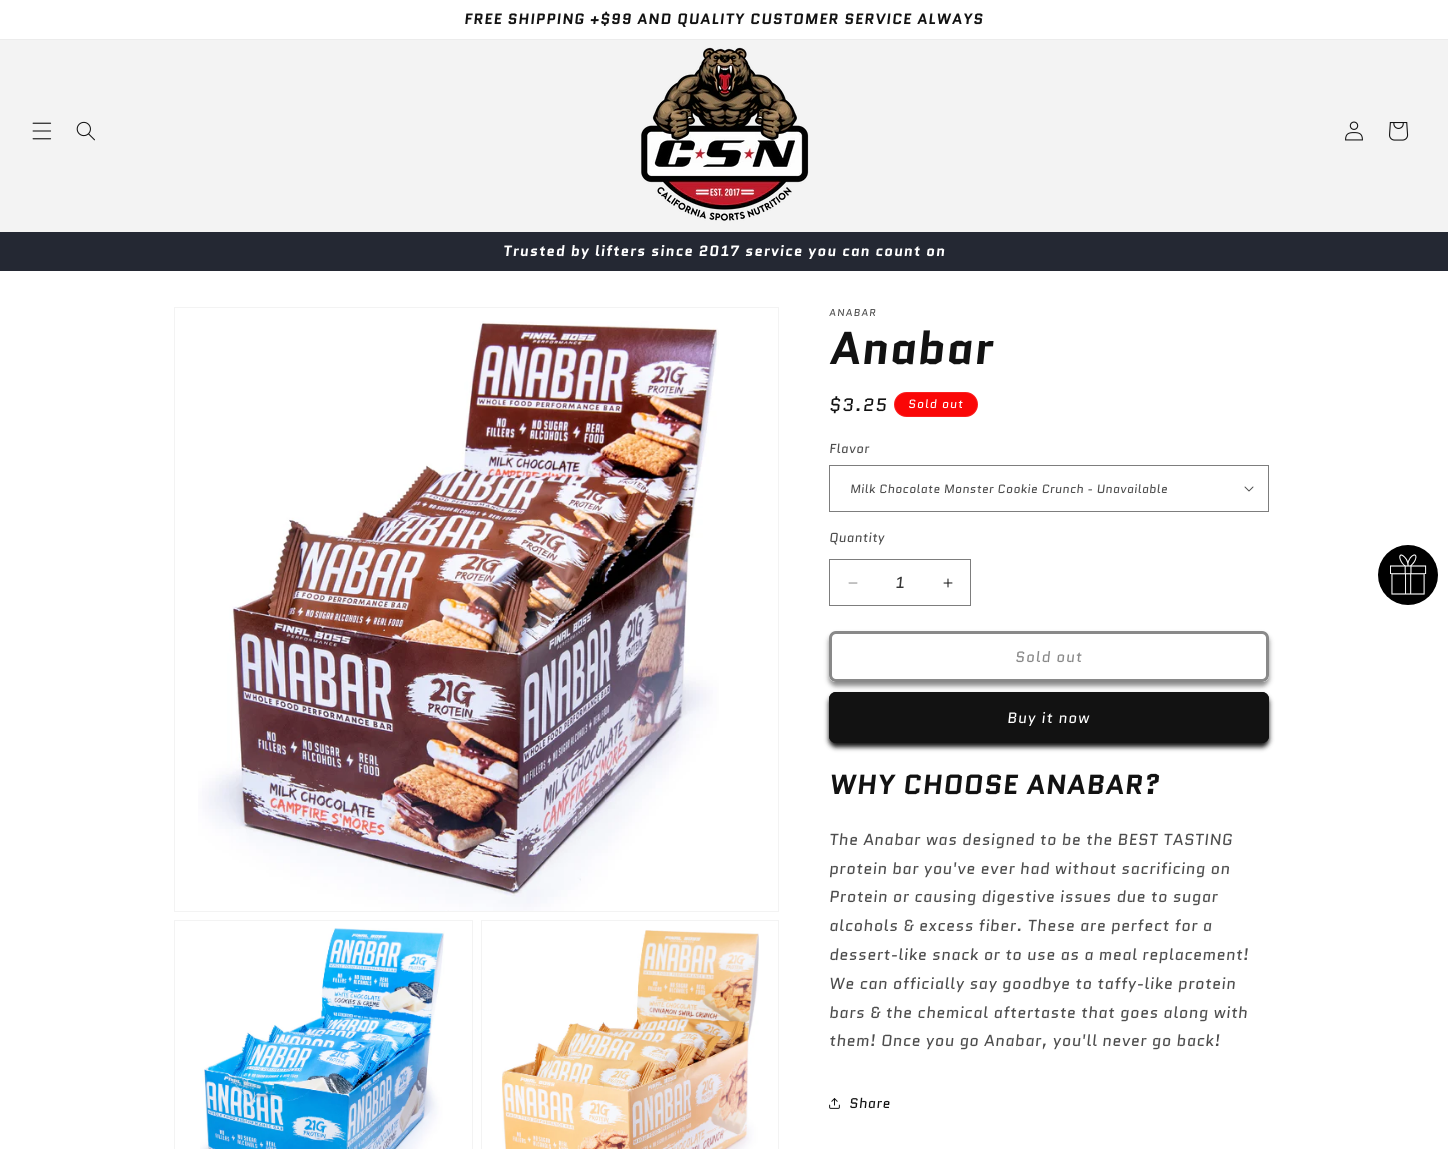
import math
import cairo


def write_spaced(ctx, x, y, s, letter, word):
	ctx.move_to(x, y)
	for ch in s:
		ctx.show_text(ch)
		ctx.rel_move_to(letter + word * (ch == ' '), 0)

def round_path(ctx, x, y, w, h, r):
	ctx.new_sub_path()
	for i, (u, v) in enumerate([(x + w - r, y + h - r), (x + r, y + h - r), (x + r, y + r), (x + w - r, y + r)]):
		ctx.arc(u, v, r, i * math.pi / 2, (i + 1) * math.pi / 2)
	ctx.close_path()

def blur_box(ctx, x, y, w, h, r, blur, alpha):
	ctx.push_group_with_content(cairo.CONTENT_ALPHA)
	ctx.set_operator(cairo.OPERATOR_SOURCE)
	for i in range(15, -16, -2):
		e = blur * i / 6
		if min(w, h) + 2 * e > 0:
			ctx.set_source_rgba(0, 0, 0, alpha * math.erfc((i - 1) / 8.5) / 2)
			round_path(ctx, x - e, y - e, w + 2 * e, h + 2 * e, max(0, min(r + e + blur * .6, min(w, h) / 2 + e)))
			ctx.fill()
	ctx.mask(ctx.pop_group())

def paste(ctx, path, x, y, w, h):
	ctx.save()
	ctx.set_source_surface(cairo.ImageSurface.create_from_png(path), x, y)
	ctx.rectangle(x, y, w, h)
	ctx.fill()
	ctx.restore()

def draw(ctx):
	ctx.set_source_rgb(1, 1, 1)
	ctx.paint()
	ctx.set_source_rgb(0.925, 0.925, 0.925)
	ctx.rectangle(0, 39, 1448, 1)
	ctx.fill()
	ctx.select_font_face('Quantico', cairo.FONT_SLANT_ITALIC, cairo.FONT_WEIGHT_BOLD)
	ctx.set_font_size(14.95)
	ctx.set_source_rgb(0.071, 0.071, 0.071)
	write_spaced(ctx, 464, 24, 'FREE SHIPPING +$99 AND QUALITY CUSTOMER SERVICE ALWAYS', 1, 0)
	ctx.set_source_rgb(0.953, 0.953, 0.953)
	ctx.rectangle(0, 40, 1448, 192)
	ctx.fill()
	paste(ctx, 'media/1.png', 32, 122, 20, 18)
	paste(ctx, 'media/2.png', 76, 121, 19, 20)
	paste(ctx, 'media/3.png', 641, 47, 168, 174)
	paste(ctx, 'media/4.png', 1345, 121, 18, 20)
	paste(ctx, 'media/5.png', 1389, 122, 20, 19)
	ctx.set_source_rgb(0.141, 0.157, 0.2)
	ctx.rectangle(0, 232, 1448, 39)
	ctx.fill()
	ctx.set_source_rgb(1, 1, 1)
	write_spaced(ctx, 503, 256, 'Trusted by lifters since 2017 service you can count on', 1, 0)
	ctx.rectangle(174.5, 307.5, 604, 604)
	ctx.set_source_rgb(0.953, 0.953, 0.953)
	ctx.set_line_width(1)
	ctx.stroke()
	paste(ctx, 'media/6.png', 198, 321, 521, 590)
	ctx.rectangle(174.5, 920.5, 298, 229)
	ctx.stroke()
	paste(ctx, 'media/7.png', 200, 928, 245, 221)
	ctx.rectangle(481.5, 920.5, 297, 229)
	ctx.stroke()
	paste(ctx, 'media/8.png', 501, 930, 258, 219)
	ctx.select_font_face('Quantico', cairo.FONT_SLANT_ITALIC)
	ctx.set_font_size(10)
	ctx.set_source_rgb(0.302, 0.302, 0.302)
	write_spaced(ctx, 829, 316, 'ANABAR', 1.25, 0)
	ctx.select_font_face('Quantico', cairo.FONT_SLANT_ITALIC, cairo.FONT_WEIGHT_BOLD)
	ctx.set_font_size(46)
	ctx.set_source_rgb(0.071, 0.071, 0.071)
	write_spaced(ctx, 829, 364, 'Anabar', 0.7, 0)
	ctx.select_font_face('Quantico', cairo.FONT_SLANT_ITALIC)
	ctx.set_font_size(18)
	write_spaced(ctx, 829, 411, '$3.25', 1.25, 0)
	ctx.set_source_rgb(0.98, 0.031, 0.031)
	round_path(ctx, 894, 392, 84, 25, 12.5)
	ctx.fill()
	round_path(ctx, 894.5, 392.5, 83, 24, 12)
	ctx.set_source_rgba(1, 1, 1, 0.1)
	ctx.stroke()
	ctx.set_font_size(12)
	ctx.set_source_rgb(1, 1, 1)
	write_spaced(ctx, 908, 408, 'Sold out', 1, 0)
	ctx.set_font_size(13)
	ctx.set_source_rgb(0.302, 0.302, 0.302)
	write_spaced(ctx, 829, 453, 'Flavor', 0.4, 0)
	paste(ctx, 'media/9.png', 1244, 486, 10, 6)
	ctx.rectangle(829.5, 465.5, 439, 46)
	ctx.set_source_rgb(0.49, 0.49, 0.49)
	ctx.stroke()
	ctx.set_font_size(12)
	ctx.set_source_rgb(0.302, 0.302, 0.302)
	write_spaced(ctx, 850, 493, 'Milk Chocolate Monster Cookie Crunch - Unavailable', 0.4, 0)
	ctx.set_font_size(13)
	write_spaced(ctx, 829, 542, 'Quantity', 0.4, 0)
	paste(ctx, 'media/10.png', 848, 582, 10, 2)
	paste(ctx, 'media/11.png', 943, 578, 10, 10)
	ctx.rectangle(829.5, 559.5, 141, 46)
	ctx.set_source_rgb(0.49, 0.49, 0.49)
	ctx.stroke()
	ctx.set_font_size(16)
	ctx.set_source_rgb(0.212, 0.212, 0.212)
	ctx.move_to(895, 588)
	ctx.show_text('1')
	ctx.save()
	ctx.set_fill_rule(cairo.FILL_RULE_EVEN_ODD)
	ctx.new_path()
	ctx.move_to(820, 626)
	ctx.line_to(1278, 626)
	ctx.line_to(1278, 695)
	ctx.line_to(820, 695)
	ctx.close_path()
	ctx.move_to(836, 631)
	ctx.line_to(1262, 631)
	ctx.curve_to(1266, 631, 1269, 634, 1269, 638)
	ctx.line_to(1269, 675)
	ctx.curve_to(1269, 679, 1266, 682, 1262, 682)
	ctx.line_to(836, 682)
	ctx.curve_to(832, 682, 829, 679, 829, 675)
	ctx.line_to(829, 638)
	ctx.curve_to(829, 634, 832, 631, 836, 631)
	ctx.close_path()
	ctx.clip()
	ctx.set_source_rgb(0.071, 0.071, 0.071)
	blur_box(ctx, 829, 635, 440, 51, 7, 2.5, 0.5)
	ctx.restore()
	round_path(ctx, 830.5, 632.5, 437, 48, 5.5)
	ctx.set_source_rgb(1, 1, 1)
	ctx.set_line_width(3)
	ctx.stroke()
	round_path(ctx, 830.5, 632.5, 437, 48, 5.5)
	ctx.set_source_rgb(0.537, 0.537, 0.537)
	ctx.stroke()
	ctx.set_font_size(15)
	write_spaced(ctx, 1015, 662, 'Sold out', 1, 0)
	ctx.set_source_rgb(0.071, 0.071, 0.071)
	blur_box(ctx, 829, 696, 440, 51, 7, 2.5, 1)
	ctx.set_source_rgb(0.071, 0.071, 0.071)
	round_path(ctx, 829, 692, 440, 51, 7)
	ctx.fill()
	round_path(ctx, 830.5, 693.5, 437, 48, 5.5)
	ctx.stroke()
	ctx.set_source_rgb(1, 1, 1)
	write_spaced(ctx, 1007, 723, 'Buy it now', 1, 0)
	ctx.select_font_face('Quantico', cairo.FONT_SLANT_ITALIC, cairo.FONT_WEIGHT_BOLD)
	ctx.set_font_size(27.6)
	ctx.set_source_rgb(0.071, 0.071, 0.071)
	write_spaced(ctx, 829, 794, 'WHY CHOOSE ANABAR?', 0.7, 0)
	ctx.select_font_face('Quantico', cairo.FONT_SLANT_ITALIC)
	ctx.set_font_size(16)
	ctx.set_source_rgb(0.302, 0.302, 0.302)
	for x, y, s in [
		(829, 845, 'The Anabar was designed to be the BEST TASTING'),
		(829, 874, 'protein bar you\'ve ever had without sacrificing on'),
		(829, 902, 'Protein or causing digestive issues due to sugar'),
		(829, 931, 'alcohols & excess fiber. These are perfect for a'),
		(829, 960, 'dessert-like snack or to use as a meal replacement!'),
		(829, 989, 'We can officially say goodbye to taffy-like protein'),
		(829, 1018, 'bars & the chemical aftertaste that goes along with'),
		(829, 1046, 'them! Once you go Anabar, you\'ll never go back!'),
	]:
		write_spaced(ctx, x, y, s, 0.6, 0)
	paste(ctx, 'media/12.png', 829, 1098, 11, 11)
	ctx.set_font_size(14)
	ctx.set_source_rgb(0.071, 0.071, 0.071)
	write_spaced(ctx, 849, 1108, 'Share', 0.6, 0)
	paste(ctx, 'media/13.png', 1378, 545, 60, 60)


surface = cairo.ImageSurface(cairo.FORMAT_RGB24, 1448, 1149)
ctx = cairo.Context(surface)
options = cairo.FontOptions()
options.set_hint_metrics(cairo.HINT_METRICS_OFF)
options.set_hint_style(cairo.HINT_STYLE_NONE)
ctx.set_font_options(options)
ctx.set_miter_limit(4)
draw(ctx)
surface.write_to_png('image.png')
